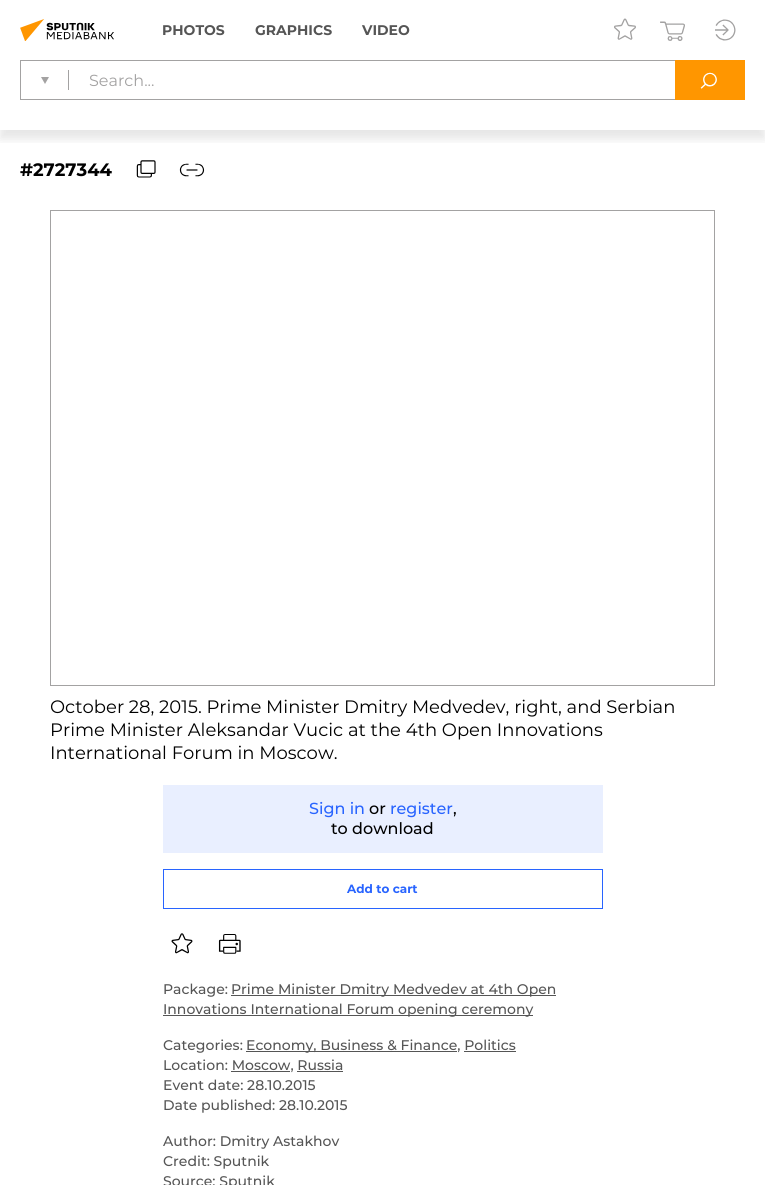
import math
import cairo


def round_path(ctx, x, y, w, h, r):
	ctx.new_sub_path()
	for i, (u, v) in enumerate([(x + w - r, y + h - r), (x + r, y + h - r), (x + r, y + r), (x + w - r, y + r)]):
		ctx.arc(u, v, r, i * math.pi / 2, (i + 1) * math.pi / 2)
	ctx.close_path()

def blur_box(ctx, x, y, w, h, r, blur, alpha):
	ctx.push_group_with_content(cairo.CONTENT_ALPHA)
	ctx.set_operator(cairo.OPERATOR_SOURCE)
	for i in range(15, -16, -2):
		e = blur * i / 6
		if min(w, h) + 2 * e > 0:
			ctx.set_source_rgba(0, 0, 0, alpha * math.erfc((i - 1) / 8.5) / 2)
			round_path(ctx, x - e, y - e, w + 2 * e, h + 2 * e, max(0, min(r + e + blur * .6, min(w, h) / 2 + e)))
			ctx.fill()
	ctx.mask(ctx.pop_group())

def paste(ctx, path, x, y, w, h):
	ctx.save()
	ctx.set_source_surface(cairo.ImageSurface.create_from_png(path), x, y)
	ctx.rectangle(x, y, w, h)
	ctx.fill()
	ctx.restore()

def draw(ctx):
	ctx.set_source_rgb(1, 1, 1)
	ctx.paint()
	ctx.save()
	ctx.rectangle(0, 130, 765, 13)
	ctx.clip()
	ctx.set_source_rgb(0, 0, 0)
	blur_box(ctx, 0, 9, 765, 130, 0, 5, 0.1)
	ctx.restore()
	paste(ctx, 'media/1.png', 20, 19, 94, 22)
	ctx.select_font_face('Montserrat', cairo.FONT_SLANT_NORMAL, cairo.FONT_WEIGHT_BOLD)
	ctx.set_font_size(14)
	ctx.set_source_rgb(0.333, 0.333, 0.333)
	for x, y, s in [
		(162, 35, 'PHOTOS'),
		(255, 35, 'GRAPHICS'),
		(362, 35, 'VIDEO'),
	]:
		ctx.move_to(x, y)
		ctx.show_text(s)
	paste(ctx, 'media/2.png', 614, 18, 22, 22)
	paste(ctx, 'media/3.png', 660, 21, 25, 20)
	paste(ctx, 'media/4.png', 715, 19, 21, 22)
	ctx.set_source_rgb(0.639, 0.635, 0.635)
	ctx.rectangle(20, 60, 655, 1)
	ctx.rectangle(20, 99, 655, 1)
	ctx.rectangle(20, 60, 1, 40)
	ctx.fill()
	ctx.new_path()
	ctx.move_to(41, 77)
	ctx.line_to(49, 77)
	ctx.line_to(45, 84)
	ctx.close_path()
	ctx.fill()
	ctx.rectangle(68, 70, 1, 20)
	ctx.fill()
	ctx.select_font_face('Montserrat')
	ctx.set_font_size(16)
	ctx.move_to(89, 86)
	ctx.show_text('Search...')
	ctx.set_source_rgb(1, 0.588, 0)
	ctx.rectangle(675, 60, 70, 40)
	ctx.fill()
	paste(ctx, 'media/5.png', 700, 72, 17, 17)
	ctx.select_font_face('Montserrat', cairo.FONT_SLANT_NORMAL, cairo.FONT_WEIGHT_BOLD)
	ctx.set_font_size(18)
	ctx.set_source_rgb(0, 0, 0)
	ctx.move_to(20, 176)
	ctx.show_text('#2727344')
	paste(ctx, 'media/6.png', 136, 160, 20, 18)
	paste(ctx, 'media/7.png', 179, 163, 26, 14)
	ctx.rectangle(50.5, 210.5, 664, 475)
	ctx.set_source_rgb(0.639, 0.635, 0.635)
	ctx.set_line_width(1)
	ctx.stroke()
	ctx.select_font_face('Montserrat')
	ctx.set_source_rgb(0, 0, 0)
	for x, y, s in [
		(50, 713, 'October 28, 2015. Prime Minister Dmitry Medvedev, right, and Serbian'),
		(50, 736, 'Prime Minister Aleksandar Vucic at the 4th Open Innovations'),
		(50, 759, 'International Forum in Moscow.'),
	]:
		ctx.move_to(x, y)
		ctx.show_text(s)
	ctx.set_source_rgb(0.914, 0.937, 1)
	ctx.rectangle(163, 785, 440, 68)
	ctx.fill()
	ctx.select_font_face('Montserrat Medium')
	ctx.set_font_size(16)
	ctx.set_source_rgb(0.157, 0.392, 1)
	ctx.move_to(309, 814)
	ctx.show_text('Sign in')
	ctx.set_source_rgb(0, 0, 0)
	ctx.move_to(369, 814)
	ctx.show_text('or')
	ctx.set_source_rgb(0.157, 0.392, 1)
	ctx.move_to(390, 814)
	ctx.show_text('register')
	ctx.set_source_rgb(0, 0, 0)
	ctx.move_to(453, 814)
	ctx.show_text(',')
	ctx.move_to(331, 834)
	ctx.show_text('to download')
	ctx.rectangle(163.5, 869.5, 439, 39)
	ctx.set_source_rgb(0.157, 0.392, 1)
	ctx.stroke()
	ctx.select_font_face('Montserrat', cairo.FONT_SLANT_NORMAL, cairo.FONT_WEIGHT_BOLD)
	ctx.set_font_size(12)
	ctx.move_to(347, 893)
	ctx.show_text('Add to cart')
	paste(ctx, 'media/8.png', 171, 933, 22, 21)
	paste(ctx, 'media/9.png', 218, 934, 23, 20)
	ctx.select_font_face('Montserrat Medium')
	ctx.set_font_size(14)
	ctx.set_source_rgb(0.333, 0.333, 0.333)
	ctx.move_to(163, 994)
	ctx.show_text('Package:')
	ctx.rectangle(231, 995, 325, 1)
	ctx.fill()
	ctx.move_to(231, 994)
	ctx.show_text('Prime Minister Dmitry Medvedev at 4th Open')
	ctx.rectangle(163, 1015, 370, 1)
	ctx.fill()
	ctx.move_to(163, 1014)
	ctx.show_text('Innovations International Forum opening ceremony')
	ctx.move_to(163, 1050)
	ctx.show_text('Categories:')
	ctx.rectangle(246, 1051, 211, 1)
	ctx.fill()
	ctx.move_to(246, 1050)
	ctx.show_text('Economy, Business & Finance, Politics')
	ctx.rectangle(464, 1051, 52, 1)
	ctx.fill()
	ctx.move_to(163, 1070)
	ctx.show_text('Location: Moscow, Russia')
	ctx.rectangle(231, 1071, 59, 1)
	ctx.fill()
	ctx.rectangle(297, 1071, 46, 1)
	ctx.fill()
	for x, y, s in [
		(163, 1090, 'Event date: 28.10.2015'),
		(163, 1110, 'Date published: 28.10.2015'),
		(163, 1146, 'Author: Dmitry Astakhov'),
		(163, 1166, 'Credit: Sputnik'),
		(163, 1186, 'Source: Sputnik'),
	]:
		ctx.move_to(x, y)
		ctx.show_text(s)


surface = cairo.ImageSurface(cairo.FORMAT_RGB24, 765, 1185)
ctx = cairo.Context(surface)
options = cairo.FontOptions()
options.set_hint_metrics(cairo.HINT_METRICS_OFF)
options.set_hint_style(cairo.HINT_STYLE_NONE)
ctx.set_font_options(options)
ctx.set_miter_limit(4)
draw(ctx)
surface.write_to_png('image.png')
